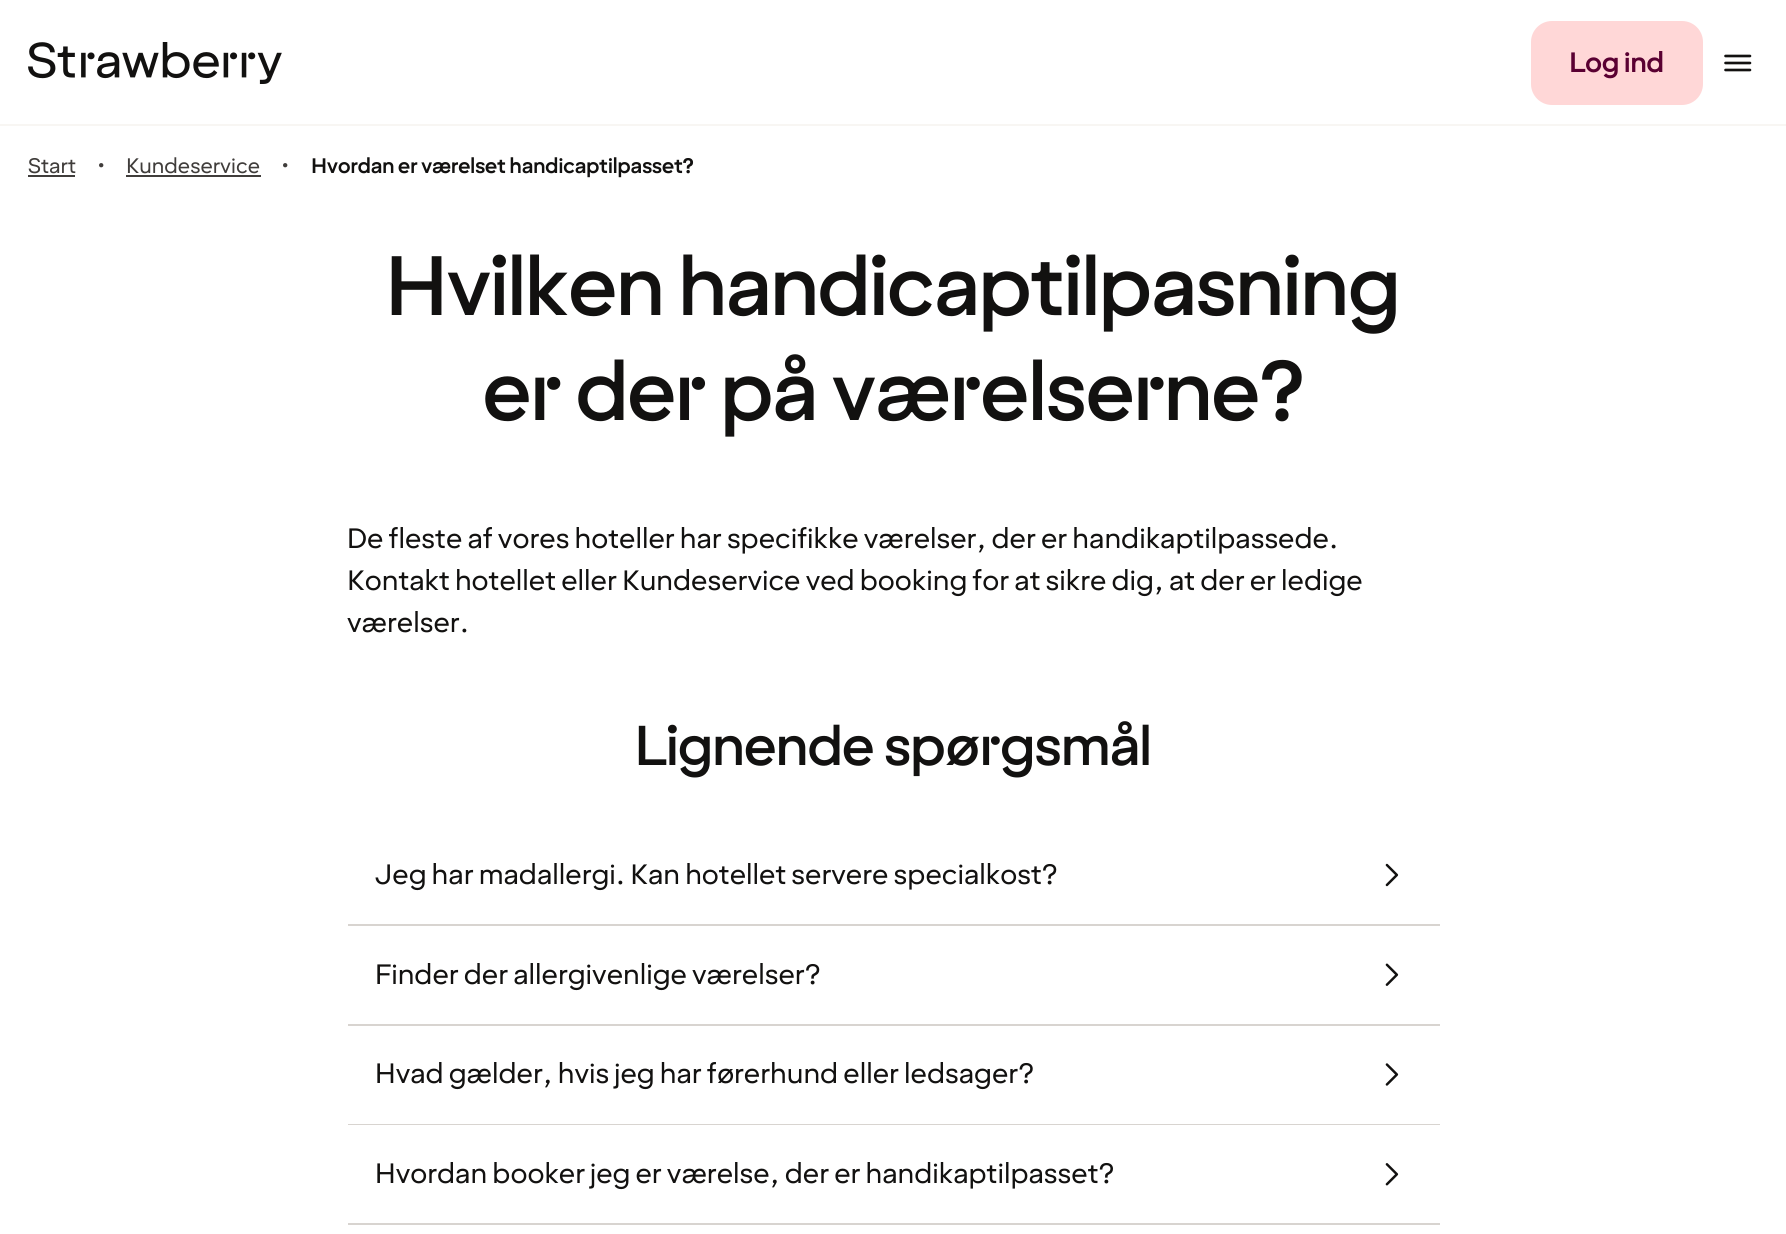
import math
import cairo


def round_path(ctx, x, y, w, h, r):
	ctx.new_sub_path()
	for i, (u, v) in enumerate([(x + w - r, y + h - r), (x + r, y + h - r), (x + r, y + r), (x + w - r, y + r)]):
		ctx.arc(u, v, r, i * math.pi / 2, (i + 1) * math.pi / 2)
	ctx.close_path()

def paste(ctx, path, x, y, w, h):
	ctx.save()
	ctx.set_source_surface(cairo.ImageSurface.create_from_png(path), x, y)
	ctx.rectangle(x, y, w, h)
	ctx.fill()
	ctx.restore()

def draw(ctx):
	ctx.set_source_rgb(1, 1, 1)
	ctx.paint()
	ctx.set_source_rgb(0.969, 0.961, 0.953)
	ctx.rectangle(0, 124, 1786, 2)
	ctx.fill()
	paste(ctx, 'media/1.png', 28, 42, 254, 42)
	ctx.set_source_rgb(1, 0.843, 0.843)
	round_path(ctx, 1533, 23, 168, 80, 19)
	ctx.fill_preserve()
	ctx.set_line_width(4)
	ctx.stroke()
	ctx.select_font_face('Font', cairo.FONT_SLANT_NORMAL, cairo.FONT_WEIGHT_BOLD)
	ctx.set_font_size(28)
	ctx.set_source_rgb(0.353, 0, 0.196)
	ctx.move_to(1569, 72)
	ctx.show_text('Log ind')
	paste(ctx, 'media/2.png', 1724, 54, 28, 18)
	ctx.select_font_face('Font')
	ctx.set_font_size(21)
	ctx.set_source_rgb(0.251, 0.239, 0.231)
	ctx.move_to(28, 173)
	ctx.show_text('Start')
	ctx.rectangle(28, 175, 47, 2)
	ctx.fill()
	ctx.move_to(97, 173)
	ctx.show_text('•')
	ctx.move_to(126, 173)
	ctx.show_text('Kundeservice')
	ctx.rectangle(126, 175, 135, 2)
	ctx.fill()
	ctx.move_to(281, 173)
	ctx.show_text('•')
	ctx.select_font_face('Font', cairo.FONT_SLANT_NORMAL, cairo.FONT_WEIGHT_BOLD)
	ctx.set_source_rgb(0.071, 0.067, 0.063)
	ctx.move_to(311, 173)
	ctx.show_text('Hvordan er værelset handicaptilpasset?')
	ctx.select_font_face('Font Medium')
	ctx.set_font_size(84)
	ctx.move_to(386, 315)
	ctx.show_text('Hvilken handicaptilpasning')
	ctx.move_to(483, 420)
	ctx.show_text('er der på værelserne?')
	ctx.select_font_face('Font')
	ctx.set_font_size(28)
	for x, y, s in [
		(347, 548, 'De fleste af vores hoteller har specifikke værelser, der er handikaptilpassede.'),
		(347, 590, 'Kontakt hotellet eller Kundeservice ved booking for at sikre dig, at der er ledige'),
		(347, 632, 'værelser.'),
	]:
		ctx.move_to(x, y)
		ctx.show_text(s)
	ctx.select_font_face('Font Medium')
	ctx.set_font_size(56)
	ctx.move_to(635, 765)
	ctx.show_text('Lignende spørgsmål')
	ctx.set_source_rgb(0.847, 0.831, 0.816)
	ctx.rectangle(348, 924, 1092, 2)
	ctx.fill()
	ctx.select_font_face('Font')
	ctx.set_font_size(28)
	ctx.set_source_rgb(0.071, 0.067, 0.063)
	ctx.move_to(375, 884)
	ctx.show_text('Jeg har madallergi. Kan hotellet servere specialkost?')
	paste(ctx, 'media/3.png', 1385, 863, 14, 24)
	ctx.set_source_rgb(0.847, 0.831, 0.816)
	ctx.rectangle(348, 1024, 1092, 2)
	ctx.fill()
	ctx.set_source_rgb(0.071, 0.067, 0.063)
	ctx.move_to(375, 984)
	ctx.show_text('Finder der allergivenlige værelser?')
	paste(ctx, 'media/4.png', 1385, 963, 14, 23)
	ctx.set_source_rgb(0.847, 0.831, 0.816)
	ctx.rectangle(348, 1124, 1092, 1)
	ctx.fill()
	ctx.set_source_rgb(0.071, 0.067, 0.063)
	ctx.move_to(375, 1083)
	ctx.show_text('Hvad gælder, hvis jeg har førerhund eller ledsager?')
	paste(ctx, 'media/5.png', 1385, 1063, 14, 23)
	ctx.set_source_rgb(0.847, 0.831, 0.816)
	ctx.rectangle(348, 1223, 1092, 2)
	ctx.fill()
	ctx.set_source_rgb(0.071, 0.067, 0.063)
	ctx.move_to(375, 1183)
	ctx.show_text('Hvordan booker jeg er værelse, der er handikaptilpasset?')
	paste(ctx, 'media/6.png', 1385, 1163, 14, 23)


surface = cairo.ImageSurface(cairo.FORMAT_RGB24, 1786, 1234)
ctx = cairo.Context(surface)
options = cairo.FontOptions()
options.set_hint_metrics(cairo.HINT_METRICS_OFF)
options.set_hint_style(cairo.HINT_STYLE_NONE)
ctx.set_font_options(options)
ctx.set_miter_limit(4)
draw(ctx)
surface.write_to_png('image.png')
